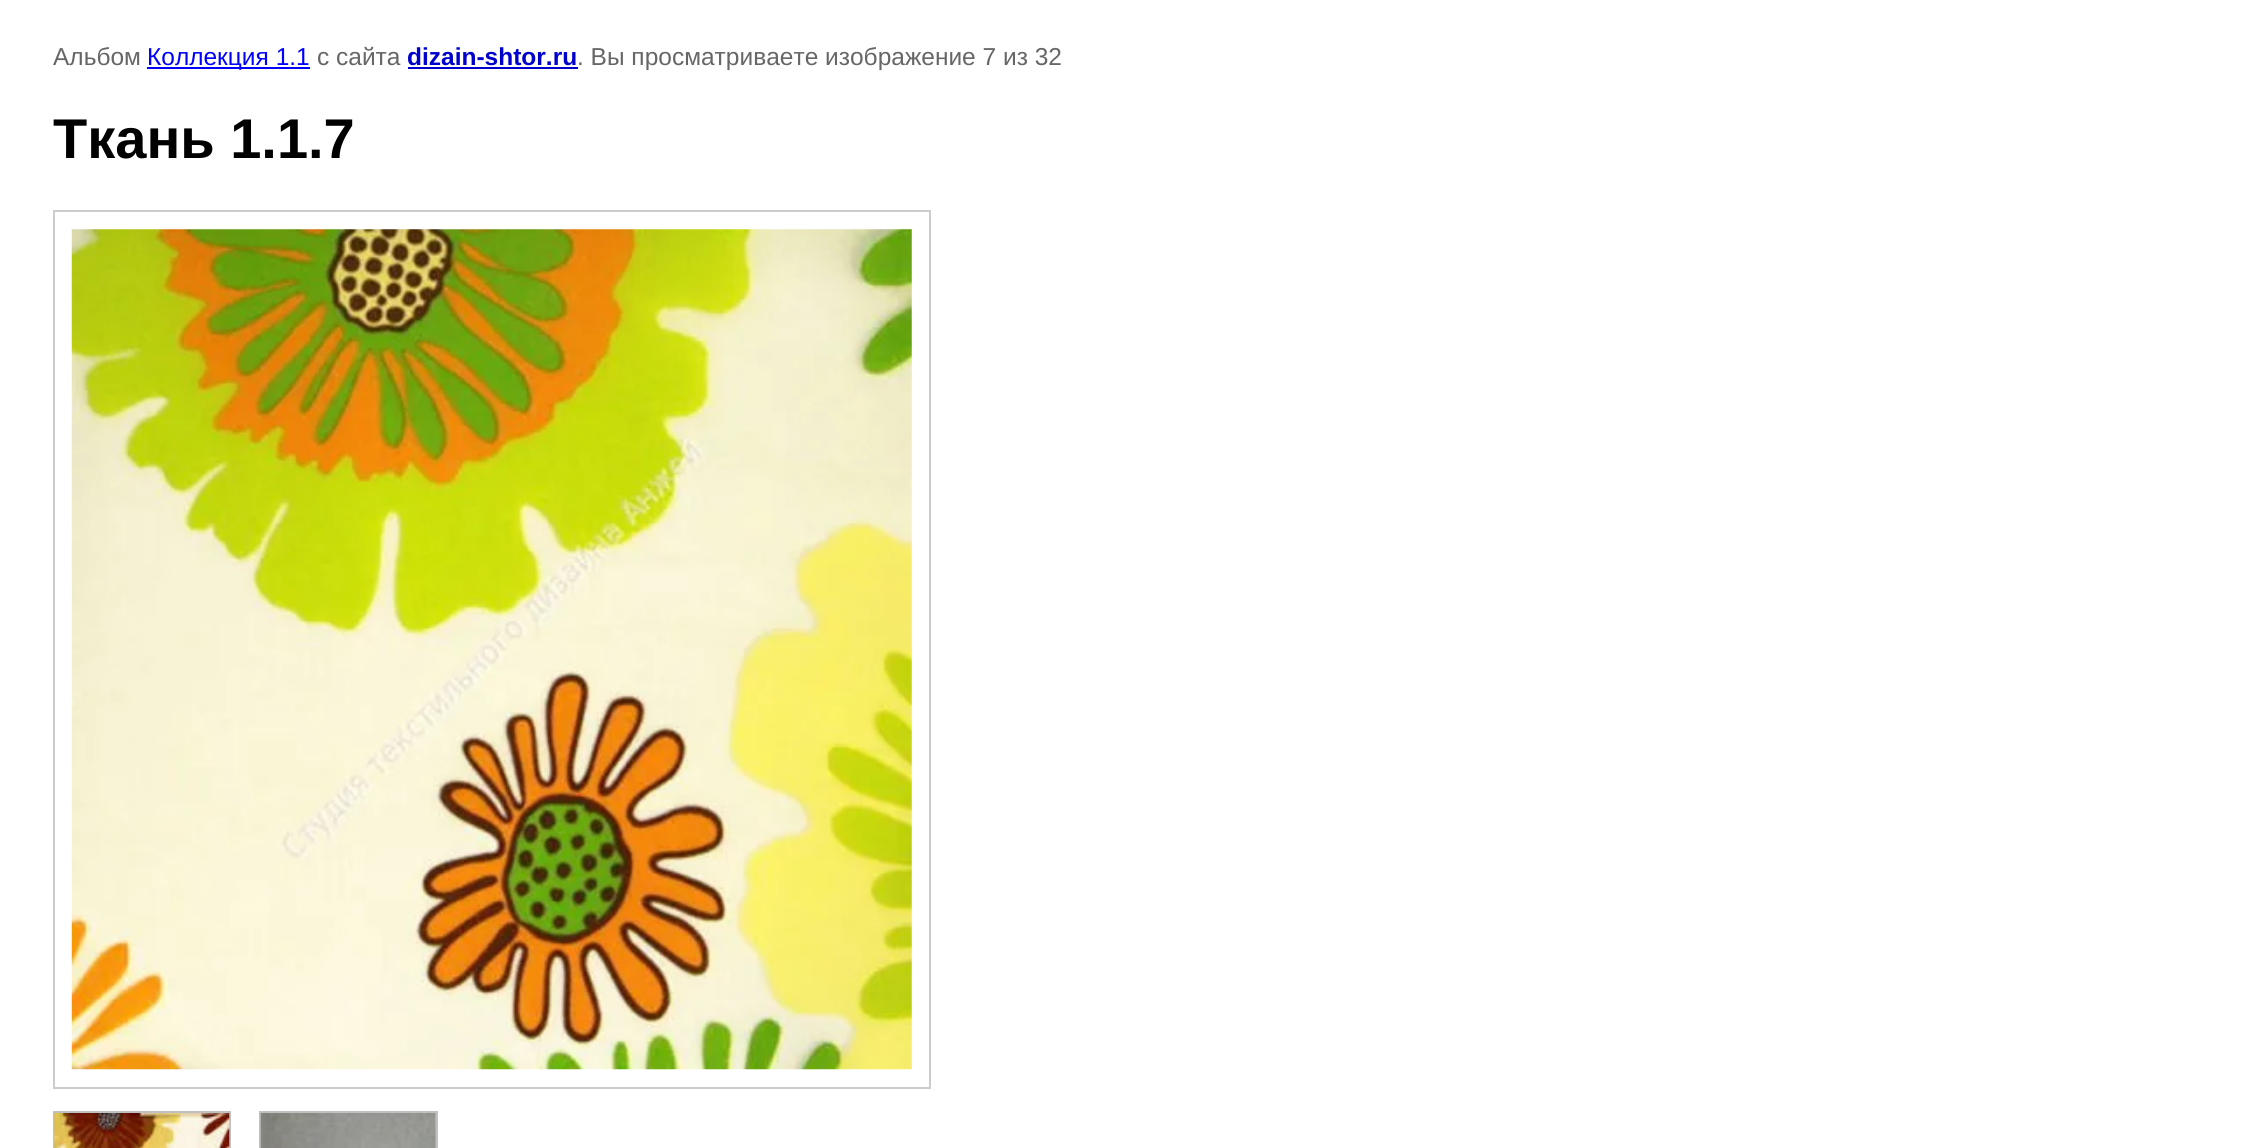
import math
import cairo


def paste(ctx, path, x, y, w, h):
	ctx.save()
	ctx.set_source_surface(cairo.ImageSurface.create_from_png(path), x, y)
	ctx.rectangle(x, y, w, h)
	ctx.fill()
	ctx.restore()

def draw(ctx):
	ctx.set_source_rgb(1, 1, 1)
	ctx.paint()
	ctx.select_font_face('Liberation Sans')
	ctx.set_font_size(24.5)
	ctx.set_source_rgb(0.4, 0.4, 0.4)
	ctx.move_to(53, 65)
	ctx.show_text('Альбом')
	ctx.set_source_rgb(0, 0, 1)
	ctx.rectangle(147, 67, 163, 2)
	ctx.fill()
	ctx.move_to(147, 65)
	ctx.show_text('Коллекция 1.1')
	ctx.set_source_rgb(0.4, 0.4, 0.4)
	ctx.move_to(317, 65)
	ctx.show_text('с сайта')
	ctx.select_font_face('Liberation Sans', cairo.FONT_SLANT_NORMAL, cairo.FONT_WEIGHT_BOLD)
	ctx.set_source_rgb(0, 0, 0.8)
	ctx.move_to(407, 65)
	ctx.show_text('dizain-shtor.ru')
	ctx.rectangle(408, 67, 170, 2)
	ctx.fill()
	ctx.select_font_face('Liberation Sans')
	ctx.set_source_rgb(0.4, 0.4, 0.4)
	ctx.move_to(577, 65)
	ctx.show_text('. Вы просматриваете изображение 7 из 32')
	ctx.select_font_face('Liberation Sans', cairo.FONT_SLANT_NORMAL, cairo.FONT_WEIGHT_BOLD)
	ctx.set_font_size(56)
	ctx.set_source_rgb(0, 0, 0)
	ctx.move_to(53, 158)
	ctx.show_text('Ткань 1.1.7')
	ctx.rectangle(54, 211, 876, 877)
	ctx.set_source_rgb(0.8, 0.8, 0.8)
	ctx.stroke()
	paste(ctx, 'media/1.png', 71, 229, 841, 841)
	ctx.rectangle(54, 1112, 176, 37)
	ctx.set_source_rgb(0.753, 0.753, 0.753)
	ctx.stroke()
	paste(ctx, 'media/2.png', 54, 1113, 176, 35)
	ctx.rectangle(260, 1112, 177, 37)
	ctx.stroke()
	paste(ctx, 'media/3.png', 260, 1113, 176, 35)


surface = cairo.ImageSurface(cairo.FORMAT_RGB24, 2257, 1148)
ctx = cairo.Context(surface)
options = cairo.FontOptions()
options.set_hint_metrics(cairo.HINT_METRICS_OFF)
options.set_hint_style(cairo.HINT_STYLE_NONE)
ctx.set_font_options(options)
ctx.set_miter_limit(4)
draw(ctx)
surface.write_to_png('image.png')
